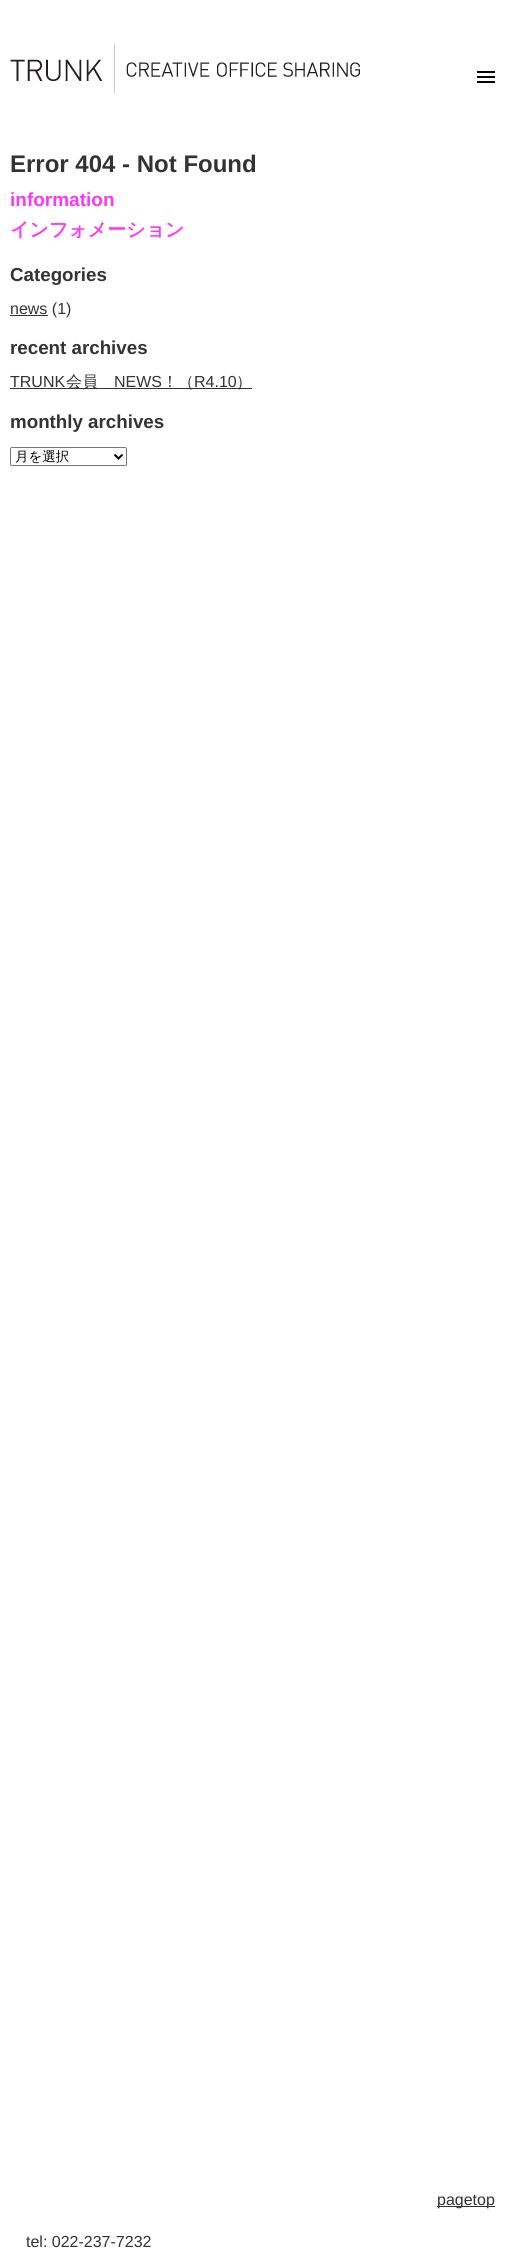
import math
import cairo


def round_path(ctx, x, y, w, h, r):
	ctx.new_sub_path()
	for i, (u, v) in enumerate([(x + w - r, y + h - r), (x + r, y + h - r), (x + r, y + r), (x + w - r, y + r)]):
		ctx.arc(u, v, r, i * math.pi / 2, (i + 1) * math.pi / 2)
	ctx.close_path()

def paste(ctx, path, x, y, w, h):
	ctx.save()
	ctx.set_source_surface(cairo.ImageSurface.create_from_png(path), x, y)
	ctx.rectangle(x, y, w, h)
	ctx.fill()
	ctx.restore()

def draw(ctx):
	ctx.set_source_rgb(1, 1, 1)
	ctx.paint()
	paste(ctx, 'media/1.png', 10, 44, 350, 50)
	paste(ctx, 'media/2.png', 477, 71, 18, 12)
	ctx.select_font_face('Liberation Sans', cairo.FONT_SLANT_NORMAL, cairo.FONT_WEIGHT_BOLD)
	ctx.set_font_size(24)
	ctx.set_source_rgb(0.2, 0.2, 0.2)
	ctx.move_to(10, 172)
	ctx.show_text('Error 404 - Not Found')
	ctx.set_font_size(19)
	ctx.set_source_rgb(1, 0.208, 0.965)
	ctx.move_to(10, 206)
	ctx.show_text('information')
	ctx.select_font_face('WenQuanYi Zen Hei', cairo.FONT_SLANT_NORMAL, cairo.FONT_WEIGHT_BOLD)
	ctx.move_to(10, 236)
	ctx.show_text('インフォメーション')
	ctx.select_font_face('Liberation Sans', cairo.FONT_SLANT_NORMAL, cairo.FONT_WEIGHT_BOLD)
	ctx.set_font_size(18.75)
	ctx.set_source_rgb(0.2, 0.2, 0.2)
	ctx.move_to(10, 281)
	ctx.show_text('Categories')
	ctx.rectangle(10, 315, 38, 1)
	ctx.fill()
	ctx.select_font_face('Liberation Sans')
	ctx.set_font_size(16)
	ctx.move_to(10, 314)
	ctx.show_text('news (1)')
	ctx.select_font_face('Liberation Sans', cairo.FONT_SLANT_NORMAL, cairo.FONT_WEIGHT_BOLD)
	ctx.set_font_size(18.75)
	ctx.move_to(10, 354)
	ctx.show_text('recent archives')
	ctx.select_font_face('Liberation Sans')
	ctx.set_font_size(16)
	ctx.move_to(10, 387)
	ctx.show_text('TRUNK')
	ctx.rectangle(10, 388, 242, 1)
	ctx.fill()
	ctx.select_font_face('WenQuanYi Zen Hei Medium')
	ctx.move_to(66, 387)
	ctx.show_text('会員')
	ctx.select_font_face('Liberation Sans')
	ctx.move_to(114, 387)
	ctx.show_text('NEWS')
	ctx.select_font_face('WenQuanYi Zen Hei Medium')
	ctx.move_to(162, 387)
	ctx.show_text('！（')
	ctx.select_font_face('Liberation Sans')
	ctx.move_to(194, 387)
	ctx.show_text('R4.10')
	ctx.select_font_face('WenQuanYi Zen Hei Medium')
	ctx.move_to(236, 387)
	ctx.show_text('）')
	ctx.select_font_face('Liberation Sans', cairo.FONT_SLANT_NORMAL, cairo.FONT_WEIGHT_BOLD)
	ctx.set_font_size(18.75)
	ctx.move_to(10, 428)
	ctx.show_text('monthly archives')
	round_path(ctx, 10.5, 447.5, 116, 18, 1.5)
	ctx.set_source_rgb(0.463, 0.463, 0.463)
	ctx.set_line_width(1)
	ctx.stroke()
	ctx.new_path()
	ctx.move_to(114.5, 454.5)
	ctx.line_to(118.5, 458.5)
	ctx.line_to(122.5, 454.5)
	ctx.set_source_rgb(0, 0, 0)
	ctx.set_line_width(2)
	ctx.stroke()
	ctx.select_font_face('WenQuanYi Zen Hei Medium')
	ctx.set_font_size(13.5)
	ctx.move_to(15, 461)
	ctx.show_text('月を選択')
	ctx.set_source_rgb(0.2, 0.2, 0.2)
	ctx.rectangle(437, 2206, 58, 1)
	ctx.fill()
	ctx.select_font_face('Liberation Sans')
	ctx.set_font_size(16)
	ctx.move_to(437, 2205)
	ctx.show_text('pagetop')
	ctx.move_to(26, 2247)
	ctx.show_text('tel: 022-237-7232')


surface = cairo.ImageSurface(cairo.FORMAT_RGB24, 521, 2257)
ctx = cairo.Context(surface)
options = cairo.FontOptions()
options.set_hint_metrics(cairo.HINT_METRICS_OFF)
options.set_hint_style(cairo.HINT_STYLE_NONE)
ctx.set_font_options(options)
ctx.set_miter_limit(4)
draw(ctx)
surface.write_to_png('image.png')
